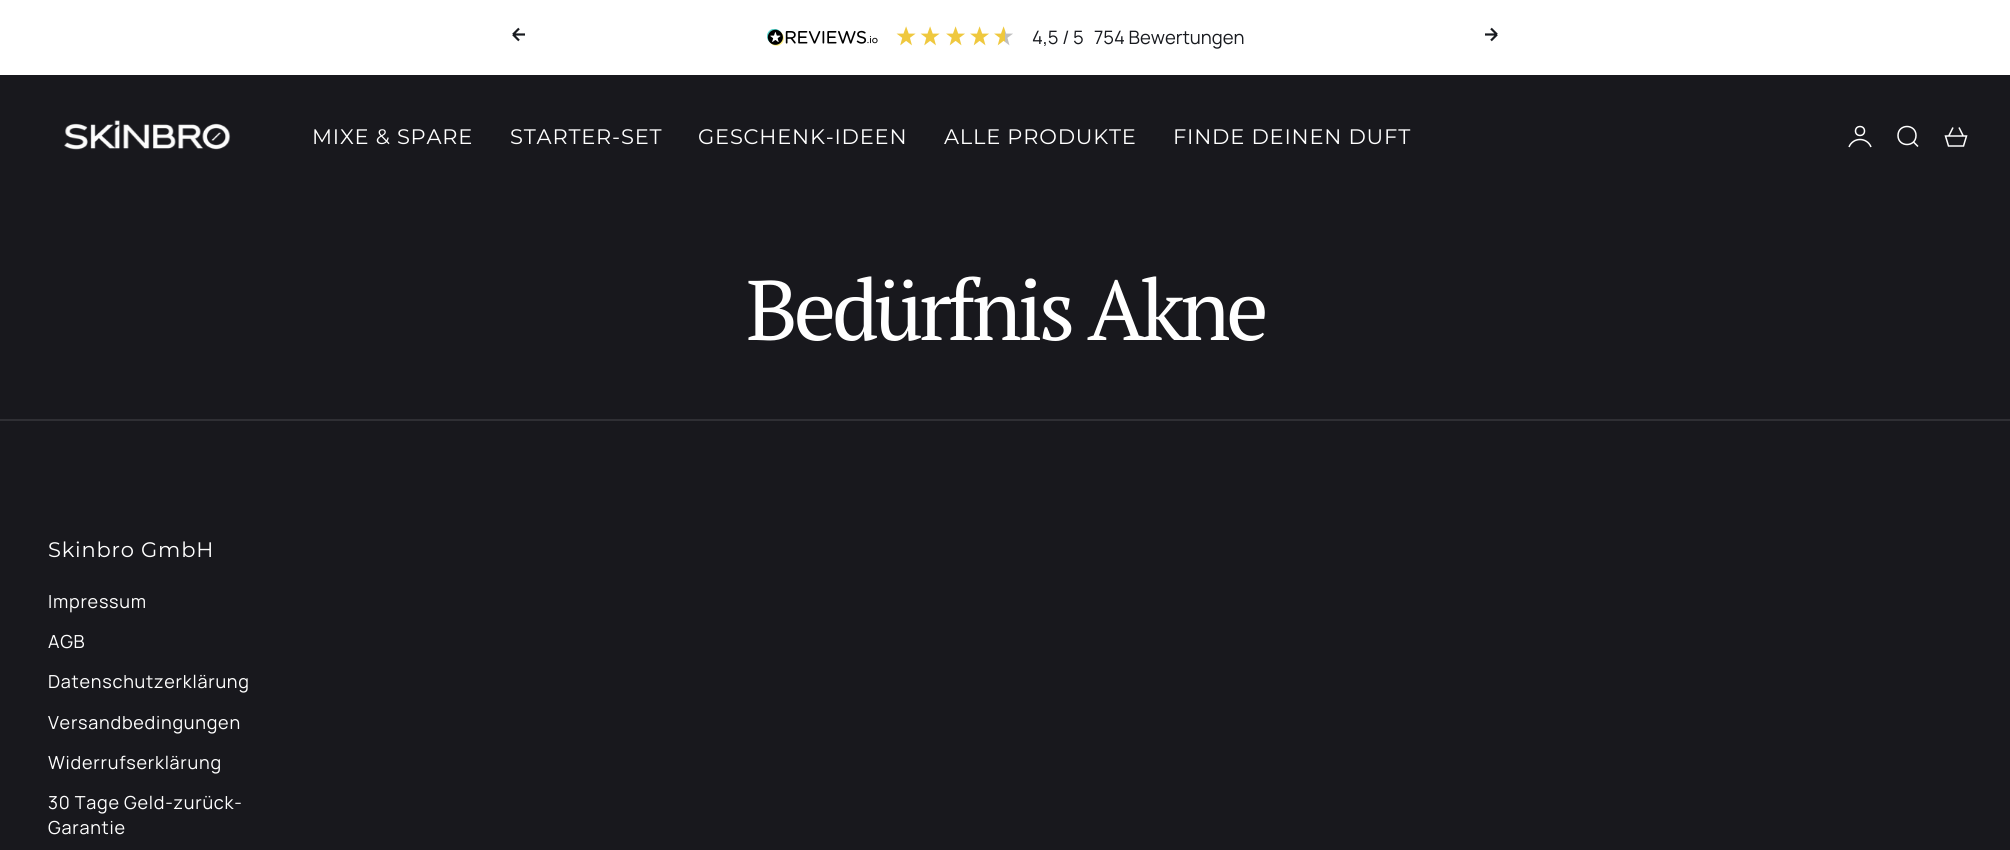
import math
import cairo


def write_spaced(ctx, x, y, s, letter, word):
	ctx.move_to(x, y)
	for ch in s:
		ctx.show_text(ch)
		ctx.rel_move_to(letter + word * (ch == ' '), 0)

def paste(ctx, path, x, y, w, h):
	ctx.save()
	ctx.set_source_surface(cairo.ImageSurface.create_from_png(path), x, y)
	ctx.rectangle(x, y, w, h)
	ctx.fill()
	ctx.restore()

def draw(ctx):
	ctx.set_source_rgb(1, 1, 1)
	ctx.paint()
	paste(ctx, 'media/1.png', 512, 27, 13, 15)
	paste(ctx, 'media/2.png', 767, 29, 111, 17)
	paste(ctx, 'media/3.png', 896, 26, 20, 20)
	paste(ctx, 'media/3.png', 920, 26, 20, 20)
	paste(ctx, 'media/4.png', 946, 26, 19, 20)
	paste(ctx, 'media/4.png', 970, 26, 19, 20)
	paste(ctx, 'media/5.png', 994, 26, 19, 20)
	ctx.select_font_face('Manrope ExtraLight')
	ctx.set_font_size(18.5)
	ctx.set_source_rgb(0.094, 0.102, 0.122)
	ctx.move_to(1032, 44)
	ctx.show_text('4,5 / 5')
	ctx.move_to(1094, 44)
	ctx.show_text('754 Bewertungen')
	paste(ctx, 'media/6.png', 1485, 27, 13, 15)
	ctx.set_source_rgb(0.094, 0.094, 0.114)
	ctx.rectangle(0, 75, 2010, 344)
	ctx.fill()
	paste(ctx, 'media/7.png', 64, 120, 167, 30)
	ctx.select_font_face('Montserrat')
	ctx.set_font_size(21)
	ctx.set_source_rgb(1, 1, 1)
	for x, y, s in [
		(312, 144, 'MIXE & SPARE'),
		(510, 144, 'STARTER-SET'),
		(698, 144, 'GESCHENK-IDEEN'),
		(944, 144, 'ALLE PRODUKTE'),
		(1173, 144, 'FINDE DEINEN DUFT'),
	]:
		write_spaced(ctx, x, y, s, 0.8, 0)
	ctx.new_path()
	ctx.move_to(1871, 147)
	ctx.curve_to(1867, 137, 1853, 137, 1849, 147)
	ctx.set_line_width(1.5)
	ctx.stroke()
	ctx.arc(1860, 131, 4.5, 0, 2 * math.pi)
	ctx.stroke()
	ctx.new_path()
	ctx.move_to(1898, 135.5)
	ctx.curve_to(1898, 147.5, 1916, 147.5, 1916, 135.5)
	ctx.curve_to(1916, 123.5, 1898, 123.5, 1898, 135.5)
	ctx.close_path()
	ctx.move_to(1913.5, 142)
	ctx.line_to(1918, 146.5)
	ctx.stroke()
	ctx.new_path()
	ctx.move_to(1948.5, 146)
	ctx.line_to(1945.5, 136)
	ctx.line_to(1966.5, 136)
	ctx.line_to(1963.5, 146)
	ctx.close_path()
	ctx.move_to(1949, 135.5)
	ctx.line_to(1953, 127.5)
	ctx.move_to(1963, 135.5)
	ctx.line_to(1959, 127.5)
	ctx.stroke()
	ctx.select_font_face('PT Serif')
	ctx.set_font_size(84.5)
	write_spaced(ctx, 746, 340, 'Bedürfnis Akne', -4.25, 0)
	ctx.set_source_rgb(0.094, 0.094, 0.114)
	ctx.rectangle(0, 421, 2010, 429)
	ctx.fill()
	ctx.set_source_rgb(0.184, 0.184, 0.204)
	ctx.rectangle(0, 419, 2010, 2)
	ctx.fill()
	ctx.select_font_face('Montserrat')
	ctx.set_font_size(21)
	ctx.set_source_rgb(1, 1, 1)
	write_spaced(ctx, 48, 557, 'Skinbro GmbH', 0.8, 0)
	ctx.select_font_face('Manrope ExtraLight')
	ctx.set_font_size(18)
	for x, y, s in [
		(48, 608, 'Impressum'),
		(48, 648, 'AGB'),
		(48, 688, 'Datenschutzerklärung'),
		(48, 729, 'Versandbedingungen'),
		(48, 769, 'Widerrufserklärung'),
		(48, 809, '30 Tage Geld-zurück-'),
		(48, 834, 'Garantie'),
	]:
		write_spaced(ctx, x, y, s, 0.75, 0)


surface = cairo.ImageSurface(cairo.FORMAT_RGB24, 2010, 850)
ctx = cairo.Context(surface)
options = cairo.FontOptions()
options.set_hint_metrics(cairo.HINT_METRICS_OFF)
options.set_hint_style(cairo.HINT_STYLE_NONE)
ctx.set_font_options(options)
ctx.set_miter_limit(4)
draw(ctx)
surface.write_to_png('image.png')
